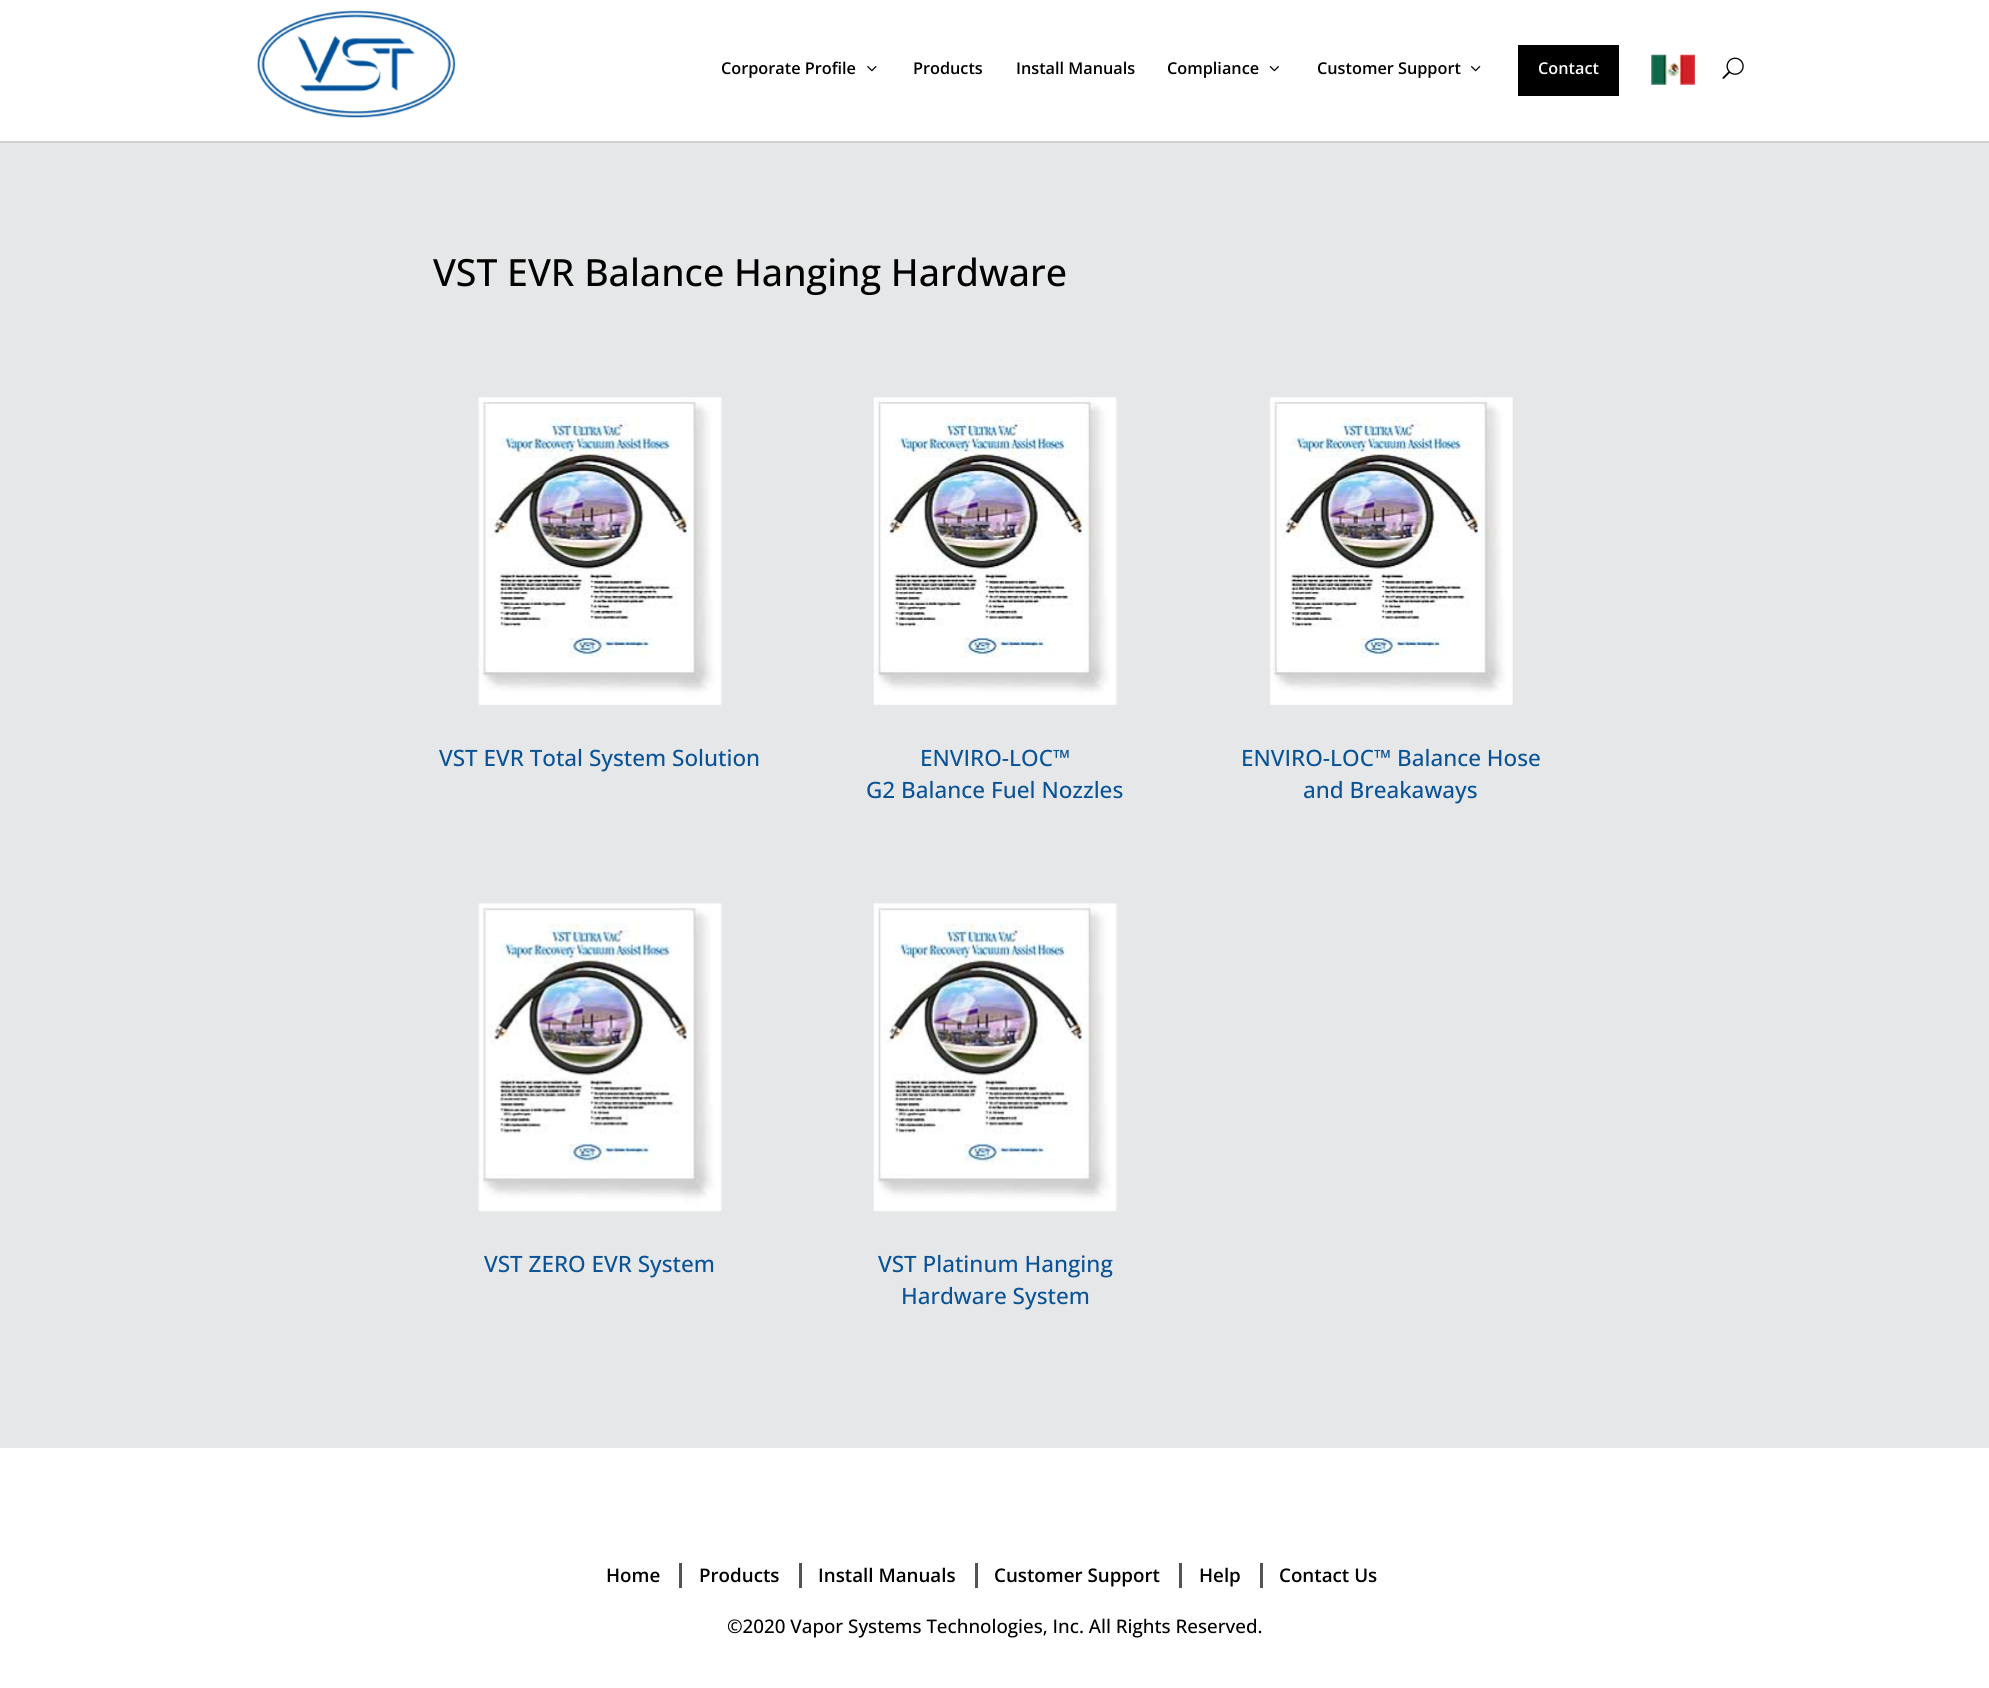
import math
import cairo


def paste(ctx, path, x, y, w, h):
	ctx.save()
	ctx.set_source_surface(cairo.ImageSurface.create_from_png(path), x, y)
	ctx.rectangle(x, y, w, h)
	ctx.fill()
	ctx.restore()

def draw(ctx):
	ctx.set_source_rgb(1, 1, 1)
	ctx.paint()
	ctx.set_source_rgb(0.812, 0.816, 0.82)
	ctx.rectangle(0, 141, 1989, 2)
	ctx.fill()
	paste(ctx, 'media/1.png', 257, 10, 199, 108)
	ctx.select_font_face('Open Sans SemiBold')
	ctx.set_font_size(16.25)
	ctx.set_source_rgb(0, 0, 0)
	ctx.move_to(721, 74)
	ctx.show_text('Corporate Profile')
	paste(ctx, 'media/2.png', 867, 66, 10, 6)
	for x, y, s in [
		(913, 74, 'Products'),
		(1016, 74, 'Install Manuals'),
		(1167, 74, 'Compliance'),
	]:
		ctx.move_to(x, y)
		ctx.show_text(s)
	paste(ctx, 'media/3.png', 1269, 66, 10, 6)
	ctx.move_to(1317, 74)
	ctx.show_text('Customer Support')
	paste(ctx, 'media/4.png', 1471, 66, 10, 6)
	ctx.rectangle(1518, 45, 101, 51)
	ctx.fill()
	ctx.set_source_rgb(1, 1, 1)
	ctx.move_to(1538, 74)
	ctx.show_text('Contact')
	paste(ctx, 'media/5.png', 1651, 54, 44, 31)
	paste(ctx, 'media/6.png', 1722, 57, 22, 22)
	ctx.set_source_rgb(0.902, 0.906, 0.91)
	ctx.rectangle(0, 143, 1989, 1305)
	ctx.fill()
	ctx.select_font_face('Open Sans Medium')
	ctx.set_font_size(37.5)
	ctx.set_source_rgb(0, 0, 0)
	ctx.move_to(433, 286)
	ctx.show_text('VST EVR Balance Hanging Hardware')
	paste(ctx, 'media/7.png', 478, 397, 244, 308)
	ctx.set_font_size(22.5)
	ctx.set_source_rgb(0.039, 0.322, 0.588)
	ctx.move_to(439, 766)
	ctx.show_text('VST EVR Total System Solution')
	paste(ctx, 'media/8.png', 873, 397, 244, 308)
	ctx.move_to(920, 766)
	ctx.show_text('ENVIRO-LOC™')
	ctx.move_to(866, 798)
	ctx.show_text('G2 Balance Fuel Nozzles')
	paste(ctx, 'media/9.png', 1269, 397, 244, 308)
	ctx.move_to(1241, 766)
	ctx.show_text('ENVIRO-LOC™ Balance Hose')
	ctx.move_to(1303, 798)
	ctx.show_text('and Breakaways')
	paste(ctx, 'media/10.png', 478, 903, 244, 309)
	ctx.move_to(484, 1272)
	ctx.show_text('VST ZERO EVR System')
	paste(ctx, 'media/11.png', 873, 903, 244, 309)
	ctx.move_to(878, 1272)
	ctx.show_text('VST Platinum Hanging')
	ctx.move_to(901, 1304)
	ctx.show_text('Hardware System')
	ctx.select_font_face('Open Sans SemiBold')
	ctx.set_font_size(18.75)
	ctx.set_source_rgb(0, 0, 0)
	ctx.move_to(606, 1582)
	ctx.show_text('Home')
	ctx.set_source_rgb(0.325, 0.325, 0.325)
	ctx.rectangle(679, 1563, 3, 25)
	ctx.fill()
	ctx.set_source_rgb(0, 0, 0)
	ctx.move_to(699, 1582)
	ctx.show_text('Products')
	ctx.set_source_rgb(0.325, 0.325, 0.325)
	ctx.rectangle(799, 1563, 3, 25)
	ctx.fill()
	ctx.set_source_rgb(0, 0, 0)
	ctx.move_to(818, 1582)
	ctx.show_text('Install Manuals')
	ctx.set_source_rgb(0.325, 0.325, 0.325)
	ctx.rectangle(975, 1563, 3, 25)
	ctx.fill()
	ctx.set_source_rgb(0, 0, 0)
	ctx.move_to(994, 1582)
	ctx.show_text('Customer Support')
	ctx.set_source_rgb(0.325, 0.325, 0.325)
	ctx.rectangle(1179, 1563, 3, 25)
	ctx.fill()
	ctx.set_source_rgb(0, 0, 0)
	ctx.move_to(1199, 1582)
	ctx.show_text('Help')
	ctx.set_source_rgb(0.325, 0.325, 0.325)
	ctx.rectangle(1260, 1563, 3, 25)
	ctx.fill()
	ctx.set_source_rgb(0, 0, 0)
	ctx.move_to(1279, 1582)
	ctx.show_text('Contact Us')
	ctx.select_font_face('Open Sans Medium')
	ctx.move_to(727, 1633)
	ctx.show_text('©2020 Vapor Systems Technologies, Inc. All Rights Reserved.')


surface = cairo.ImageSurface(cairo.FORMAT_RGB24, 1989, 1688)
ctx = cairo.Context(surface)
options = cairo.FontOptions()
options.set_hint_metrics(cairo.HINT_METRICS_OFF)
options.set_hint_style(cairo.HINT_STYLE_NONE)
ctx.set_font_options(options)
ctx.set_miter_limit(4)
draw(ctx)
surface.write_to_png('image.png')
